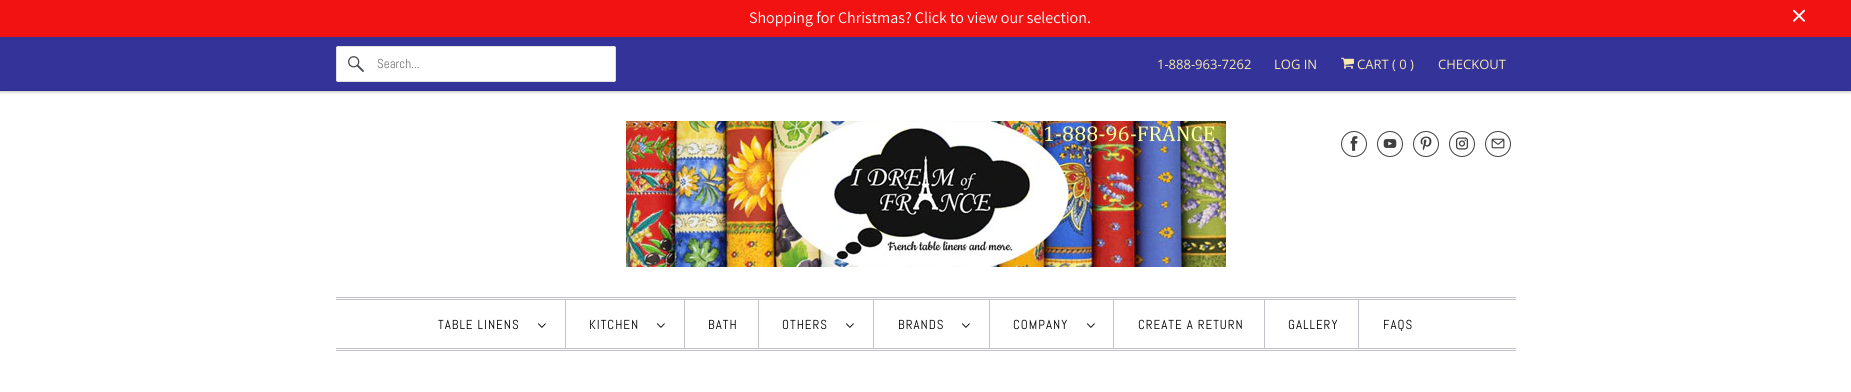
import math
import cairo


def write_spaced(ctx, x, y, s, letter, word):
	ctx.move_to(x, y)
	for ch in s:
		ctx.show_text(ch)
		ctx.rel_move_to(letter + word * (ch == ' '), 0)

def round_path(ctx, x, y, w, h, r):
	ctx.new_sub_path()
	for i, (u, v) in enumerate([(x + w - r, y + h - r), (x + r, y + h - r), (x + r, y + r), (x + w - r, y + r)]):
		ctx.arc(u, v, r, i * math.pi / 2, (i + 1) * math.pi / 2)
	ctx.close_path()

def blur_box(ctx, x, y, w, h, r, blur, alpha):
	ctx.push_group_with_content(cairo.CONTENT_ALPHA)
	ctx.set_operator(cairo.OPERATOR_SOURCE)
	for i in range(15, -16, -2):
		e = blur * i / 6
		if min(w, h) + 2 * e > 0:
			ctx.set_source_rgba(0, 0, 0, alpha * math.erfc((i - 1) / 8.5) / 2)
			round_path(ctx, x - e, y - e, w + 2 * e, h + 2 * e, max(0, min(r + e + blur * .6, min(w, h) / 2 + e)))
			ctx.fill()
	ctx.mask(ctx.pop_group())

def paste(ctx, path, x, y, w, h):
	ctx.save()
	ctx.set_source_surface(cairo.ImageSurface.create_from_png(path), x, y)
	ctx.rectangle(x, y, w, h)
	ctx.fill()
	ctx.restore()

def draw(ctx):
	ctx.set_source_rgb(1, 1, 1)
	ctx.paint()
	ctx.set_source_rgb(0.949, 0.071, 0.071)
	ctx.rectangle(0, 0, 1851, 37)
	ctx.fill()
	ctx.select_font_face('Assistant')
	ctx.set_font_size(16)
	ctx.set_source_rgb(1, 1, 1)
	ctx.move_to(749, 23)
	ctx.show_text('Shopping for Christmas? Click to view our selection.')
	paste(ctx, 'media/1.png', 1793, 9, 12, 13)
	ctx.set_source_rgb(0, 0, 0)
	blur_box(ctx, 0, 38, 1851, 54, 0, 1.5, 0.25)
	ctx.set_source_rgb(0.2, 0.2, 0.6)
	ctx.rectangle(0, 37, 1851, 53)
	ctx.fill()
	ctx.set_source_rgb(0.18, 0.18, 0.541)
	ctx.rectangle(0, 90, 1851, 1)
	ctx.fill()
	ctx.set_source_rgb(1, 1, 1)
	round_path(ctx, 336.5, 46.5, 279, 35, 1.5)
	ctx.fill_preserve()
	ctx.set_source_rgb(0.875, 0.875, 0.875)
	ctx.set_line_width(1)
	ctx.stroke()
	paste(ctx, 'media/2.png', 348, 56, 16, 16)
	ctx.select_font_face('Abel')
	ctx.set_font_size(13)
	ctx.set_source_rgb(0.459, 0.459, 0.459)
	ctx.move_to(377, 68)
	ctx.show_text('Search...')
	ctx.select_font_face('Open Sans')
	ctx.set_source_rgb(0.973, 0.914, 0.675)
	ctx.move_to(1157, 69)
	ctx.show_text('1-888-963-7262')
	ctx.move_to(1274, 69)
	ctx.show_text('LOG IN')
	paste(ctx, 'media/3.png', 1341, 57, 13, 12)
	ctx.move_to(1357, 69)
	ctx.show_text('CART ( 0 )')
	ctx.move_to(1438, 69)
	ctx.show_text('CHECKOUT')
	paste(ctx, 'media/4.png', 626, 121, 600, 146)
	ctx.arc(1354, 144, 12.5, 0, 2 * math.pi)
	ctx.set_source_rgb(0.251, 0.251, 0.251)
	ctx.stroke()
	paste(ctx, 'media/5.png', 1350, 136, 8, 15)
	ctx.arc(1390, 144, 12.5, 0, 2 * math.pi)
	ctx.stroke()
	paste(ctx, 'media/6.png', 1383, 139, 14, 9)
	ctx.arc(1426, 144, 12.5, 0, 2 * math.pi)
	ctx.stroke()
	paste(ctx, 'media/7.png', 1420, 136, 12, 15)
	ctx.arc(1462, 144, 12.5, 0, 2 * math.pi)
	ctx.stroke()
	paste(ctx, 'media/8.png', 1455, 137, 14, 13)
	ctx.arc(1498, 144, 12.5, 0, 2 * math.pi)
	ctx.stroke()
	paste(ctx, 'media/9.png', 1491, 138, 14, 11)
	ctx.set_source_rgb(0.761, 0.757, 0.8)
	ctx.rectangle(336, 297, 1180, 1)
	ctx.rectangle(336, 299, 1180, 1)
	ctx.rectangle(336, 348, 1180, 1)
	ctx.rectangle(336, 350, 1180, 1)
	ctx.rectangle(565, 300, 1, 48)
	ctx.fill()
	ctx.select_font_face('Abel')
	ctx.set_source_rgb(0, 0, 0)
	write_spaced(ctx, 438, 329, 'TABLE LINENS', 1, 0)
	paste(ctx, 'media/10.png', 538, 323, 8, 5)
	ctx.set_source_rgb(0.761, 0.757, 0.8)
	ctx.rectangle(684, 300, 1, 48)
	ctx.fill()
	ctx.set_source_rgb(0, 0, 0)
	write_spaced(ctx, 589, 329, 'KITCHEN', 1, 0)
	paste(ctx, 'media/10.png', 657, 323, 8, 5)
	ctx.set_source_rgb(0.761, 0.757, 0.8)
	ctx.rectangle(758, 300, 1, 48)
	ctx.fill()
	ctx.set_source_rgb(0, 0, 0)
	write_spaced(ctx, 708, 329, 'BATH', 1, 0)
	ctx.set_source_rgb(0.761, 0.757, 0.8)
	ctx.rectangle(873, 300, 1, 48)
	ctx.fill()
	ctx.set_source_rgb(0, 0, 0)
	write_spaced(ctx, 782, 329, 'OTHERS', 1, 0)
	paste(ctx, 'media/10.png', 846, 323, 8, 5)
	ctx.set_source_rgb(0.761, 0.757, 0.8)
	ctx.rectangle(989, 300, 1, 48)
	ctx.fill()
	ctx.set_source_rgb(0, 0, 0)
	write_spaced(ctx, 898, 329, 'BRANDS', 1, 0)
	paste(ctx, 'media/10.png', 962, 323, 8, 5)
	ctx.set_source_rgb(0.761, 0.757, 0.8)
	ctx.rectangle(1113, 300, 1, 48)
	ctx.fill()
	ctx.set_source_rgb(0, 0, 0)
	write_spaced(ctx, 1013, 329, 'COMPANY', 1, 0)
	paste(ctx, 'media/10.png', 1087, 323, 8, 5)
	ctx.set_source_rgb(0.761, 0.757, 0.8)
	ctx.rectangle(1264, 300, 1, 48)
	ctx.fill()
	ctx.set_source_rgb(0, 0, 0)
	write_spaced(ctx, 1138, 329, 'CREATE A RETURN', 1, 0)
	ctx.set_source_rgb(0.761, 0.757, 0.8)
	ctx.rectangle(1358, 300, 1, 48)
	ctx.fill()
	ctx.set_source_rgb(0, 0, 0)
	write_spaced(ctx, 1288, 329, 'GALLERY', 1, 0)
	write_spaced(ctx, 1383, 329, 'FAQS', 1, 0)


surface = cairo.ImageSurface(cairo.FORMAT_RGB24, 1851, 392)
ctx = cairo.Context(surface)
options = cairo.FontOptions()
options.set_hint_metrics(cairo.HINT_METRICS_OFF)
options.set_hint_style(cairo.HINT_STYLE_NONE)
ctx.set_font_options(options)
ctx.set_miter_limit(4)
draw(ctx)
surface.write_to_png('image.png')
